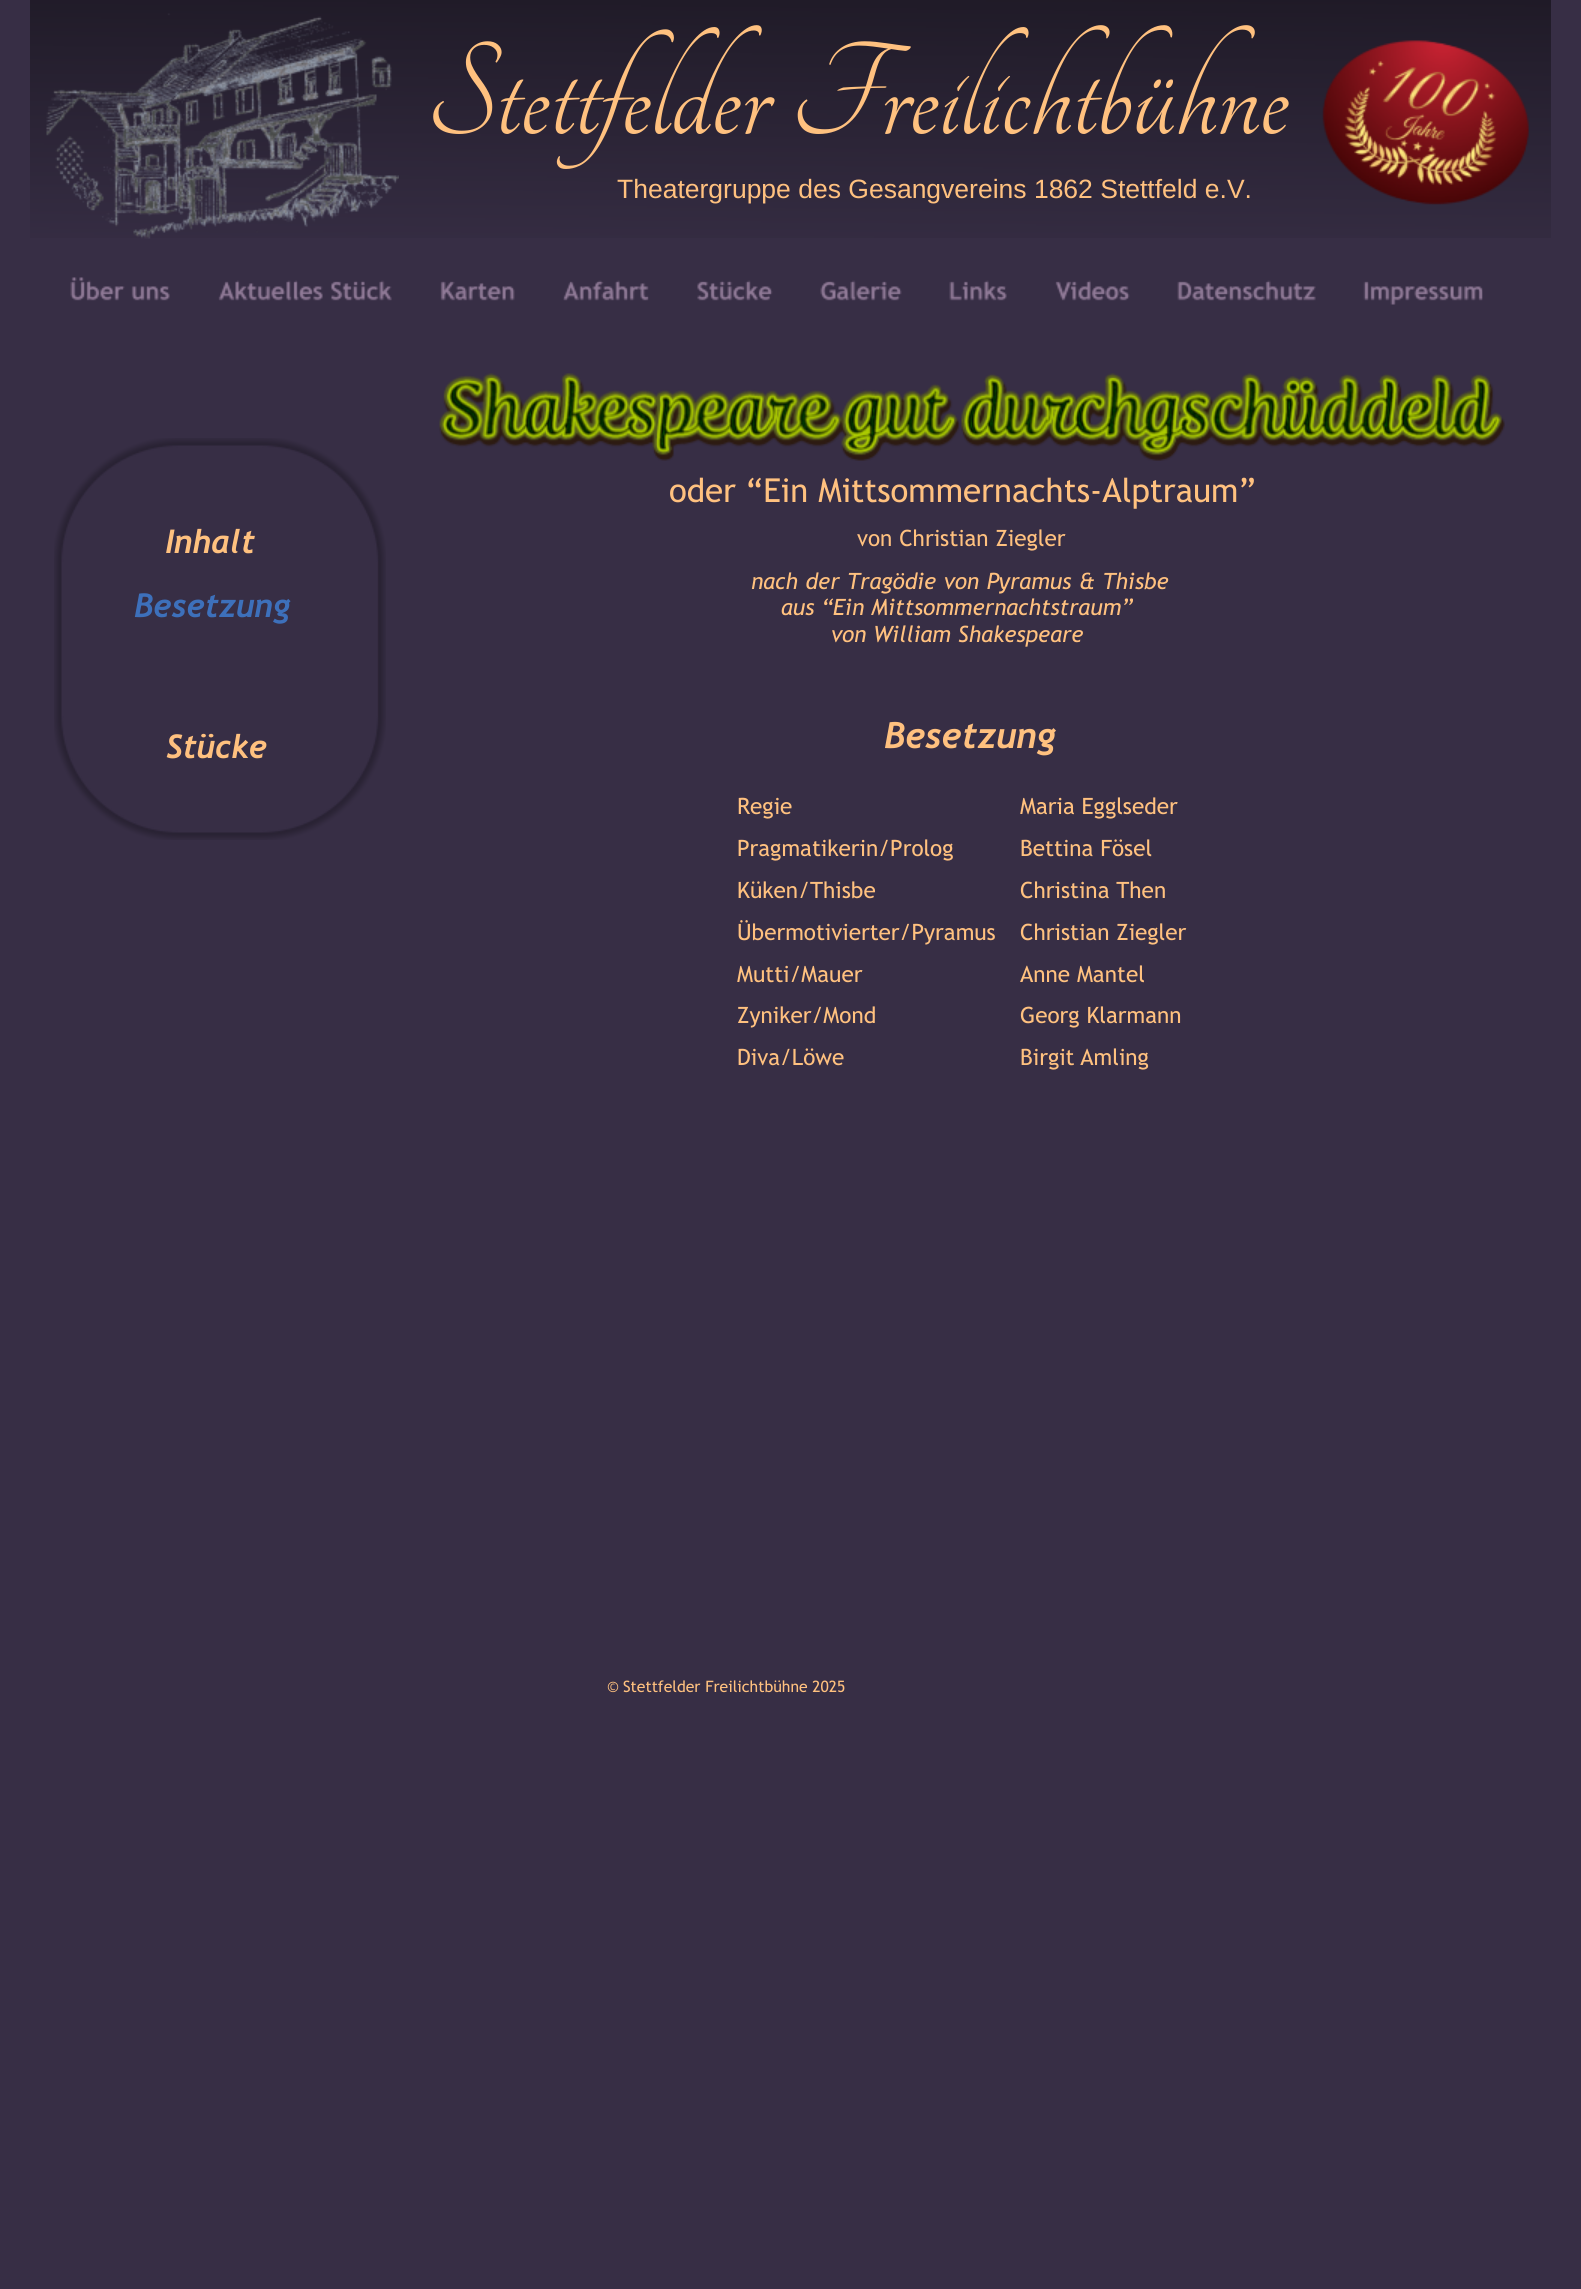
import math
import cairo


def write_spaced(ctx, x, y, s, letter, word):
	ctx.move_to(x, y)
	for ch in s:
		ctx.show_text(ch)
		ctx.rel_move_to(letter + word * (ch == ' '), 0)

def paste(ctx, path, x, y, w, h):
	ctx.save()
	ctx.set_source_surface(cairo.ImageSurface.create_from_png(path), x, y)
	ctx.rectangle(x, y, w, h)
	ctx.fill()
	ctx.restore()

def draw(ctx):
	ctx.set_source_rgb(0.216, 0.18, 0.271)
	ctx.paint()
	paste(ctx, 'media/1.png', 30, 0, 1521, 238)
	paste(ctx, 'media/2.png', 46, 13, 353, 226)
	ctx.select_font_face('Tangerine')
	ctx.set_font_size(144)
	ctx.set_source_rgb(1, 0.757, 0.498)
	ctx.move_to(426, 134)
	ctx.show_text('Stettfelder Freilichtbühne')
	paste(ctx, 'media/3.png', 1322, 40, 207, 165)
	ctx.select_font_face('Liberation Sans')
	ctx.set_font_size(26.5)
	ctx.move_to(617, 198)
	ctx.show_text('Theatergruppe des Gesangvereins 1862 Stettfeld e.V.')
	paste(ctx, 'media/4.png', 439, 373, 1066, 88)
	paste(ctx, 'media/5.png', 54, 438, 332, 402)
	ctx.select_font_face('Trebuchet MS')
	ctx.set_font_size(33)
	ctx.move_to(669, 502)
	ctx.show_text('oder “Ein Mittsommernachts-Alptraum”')
	ctx.select_font_face('Trebuchet MS', cairo.FONT_SLANT_ITALIC, cairo.FONT_WEIGHT_BOLD)
	ctx.set_font_size(32.75)
	ctx.move_to(165, 553)
	ctx.show_text('Inhalt')
	ctx.select_font_face('Trebuchet MS')
	ctx.set_font_size(22.5)
	ctx.move_to(857, 546)
	ctx.show_text('von Christian Ziegler')
	ctx.select_font_face('Trebuchet MS', cairo.FONT_SLANT_ITALIC, cairo.FONT_WEIGHT_BOLD)
	ctx.set_font_size(32.75)
	ctx.set_source_rgb(0.239, 0.439, 0.733)
	ctx.move_to(134, 617)
	ctx.show_text('Besetzung')
	ctx.select_font_face('Trebuchet MS', cairo.FONT_SLANT_ITALIC)
	ctx.set_font_size(22.5)
	ctx.set_source_rgb(1, 0.757, 0.498)
	write_spaced(ctx, 751, 589, 'nach der Tragödie von Pyramus & Thisbe', 0, 0.75)
	ctx.move_to(781, 615)
	ctx.show_text('aus “Ein Mittsommernachtstraum”')
	ctx.move_to(831, 642)
	ctx.show_text('von William Shakespeare')
	ctx.select_font_face('Trebuchet MS', cairo.FONT_SLANT_ITALIC, cairo.FONT_WEIGHT_BOLD)
	ctx.set_font_size(32.75)
	ctx.move_to(166, 758)
	ctx.show_text('Stücke')
	ctx.set_font_size(36)
	ctx.move_to(884, 748)
	ctx.show_text('Besetzung')
	ctx.select_font_face('Trebuchet MS')
	ctx.set_font_size(22.5)
	for x, y, s in [
		(737, 814, 'Regie'),
		(1020, 814, 'Maria Egglseder'),
		(737, 856, 'Pragmatikerin/Prolog'),
		(1020, 856, 'Bettina Fösel'),
		(737, 898, 'Küken/Thisbe'),
		(1020, 898, 'Christina Then'),
		(737, 940, 'Übermotivierter/Pyramus'),
		(1020, 940, 'Christian Ziegler'),
		(737, 982, 'Mutti/Mauer'),
		(1020, 982, 'Anne Mantel'),
		(737, 1023, 'Zyniker/Mond'),
		(1020, 1023, 'Georg Klarmann'),
		(737, 1065, 'Diva/Löwe'),
	]:
		ctx.move_to(x, y)
		ctx.show_text(s)
	write_spaced(ctx, 1020, 1065, 'Birgit Amling', 0, -1)
	ctx.set_font_size(15.75)
	ctx.move_to(607, 1692)
	ctx.show_text('© Stettfelder Freilichtbühne 2025')
	paste(ctx, 'media/6.png', 70, 277, 100, 24)
	paste(ctx, 'media/7.png', 218, 280, 174, 21)
	paste(ctx, 'media/8.png', 440, 281, 75, 20)
	paste(ctx, 'media/9.png', 563, 280, 86, 21)
	paste(ctx, 'media/10.png', 697, 280, 76, 21)
	paste(ctx, 'media/11.png', 820, 280, 82, 21)
	paste(ctx, 'media/12.png', 949, 280, 58, 21)
	paste(ctx, 'media/13.png', 1055, 280, 75, 21)
	paste(ctx, 'media/14.png', 1177, 280, 139, 21)
	paste(ctx, 'media/15.png', 1363, 281, 120, 24)


surface = cairo.ImageSurface(cairo.FORMAT_RGB24, 1581, 2289)
ctx = cairo.Context(surface)
options = cairo.FontOptions()
options.set_hint_metrics(cairo.HINT_METRICS_OFF)
options.set_hint_style(cairo.HINT_STYLE_NONE)
ctx.set_font_options(options)
ctx.set_miter_limit(4)
draw(ctx)
surface.write_to_png('image.png')
